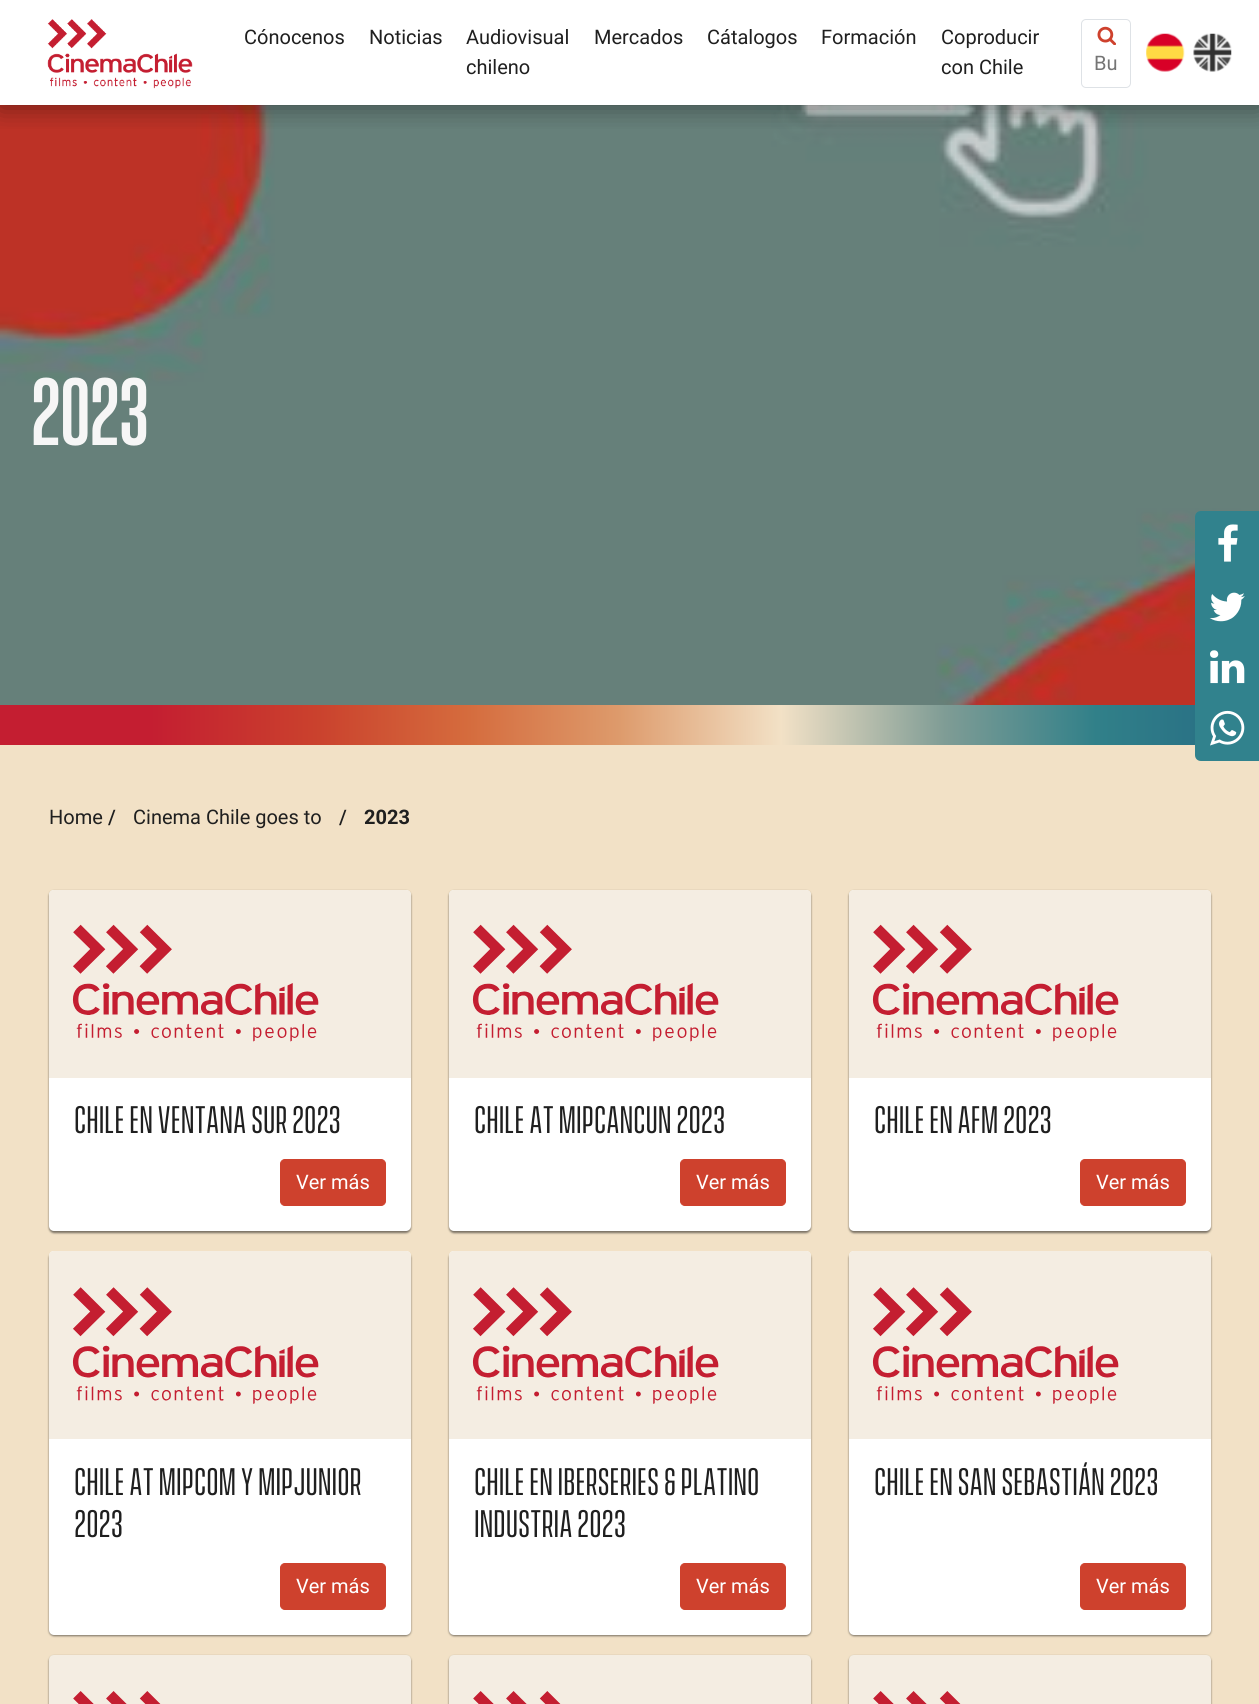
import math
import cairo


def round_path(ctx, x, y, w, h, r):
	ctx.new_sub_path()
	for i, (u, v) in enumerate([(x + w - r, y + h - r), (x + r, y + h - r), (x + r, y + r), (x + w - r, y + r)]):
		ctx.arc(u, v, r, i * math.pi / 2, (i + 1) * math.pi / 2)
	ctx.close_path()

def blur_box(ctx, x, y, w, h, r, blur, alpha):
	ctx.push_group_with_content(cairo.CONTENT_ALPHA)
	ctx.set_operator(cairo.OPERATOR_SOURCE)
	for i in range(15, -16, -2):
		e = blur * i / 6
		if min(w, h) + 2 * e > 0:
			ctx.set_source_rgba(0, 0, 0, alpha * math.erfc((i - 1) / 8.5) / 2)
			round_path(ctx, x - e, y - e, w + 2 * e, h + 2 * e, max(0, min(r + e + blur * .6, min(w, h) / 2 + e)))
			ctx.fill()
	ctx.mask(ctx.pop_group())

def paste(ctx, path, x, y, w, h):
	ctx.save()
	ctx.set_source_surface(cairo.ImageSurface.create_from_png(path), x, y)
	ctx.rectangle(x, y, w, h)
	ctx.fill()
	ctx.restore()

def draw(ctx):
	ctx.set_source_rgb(1, 1, 1)
	ctx.paint()
	paste(ctx, 'media/5.png', 0, 105, 1259, 600)
	ctx.save()
	ctx.rectangle(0, 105, 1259, 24)
	ctx.clip()
	ctx.set_source_rgb(0, 0, 0)
	blur_box(ctx, 0, 3, 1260, 105, 0, 12.5, 0.4)
	ctx.restore()
	paste(ctx, 'media/1.png', 47, 19, 146, 70)
	ctx.select_font_face('Roboto')
	ctx.set_font_size(20)
	ctx.set_source_rgb(0.122, 0.122, 0.122)
	for x, y, s in [
		(244, 44, 'Cónocenos'),
		(369, 44, 'Noticias'),
		(466, 44, 'Audiovisual'),
		(466, 74, 'chileno'),
		(594, 44, 'Mercados'),
		(707, 44, 'Cátalogos'),
		(821, 44, 'Formación'),
		(941, 44, 'Coproducir'),
		(941, 74, 'con Chile'),
	]:
		ctx.move_to(x, y)
		ctx.show_text(s)
	round_path(ctx, 1081.5, 19.5, 49, 68, 4.5)
	ctx.set_source_rgb(0.871, 0.886, 0.902)
	ctx.set_line_width(1)
	ctx.stroke()
	paste(ctx, 'media/2.png', 1097, 26, 19, 19)
	ctx.set_source_rgb(0.459, 0.459, 0.459)
	ctx.move_to(1094, 70)
	ctx.show_text('Bu')
	paste(ctx, 'media/3.png', 1146, 33, 39, 39)
	paste(ctx, 'media/4.png', 1193, 33, 39, 39)
	ctx.set_source_rgb(0.949, 0.882, 0.776)
	ctx.rectangle(0, 745, 1259, 959)
	ctx.fill()
	ctx.select_font_face('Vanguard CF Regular', cairo.FONT_SLANT_NORMAL, cairo.FONT_WEIGHT_BOLD)
	ctx.set_font_size(84)
	ctx.set_source_rgb(0.961, 0.961, 0.961)
	ctx.move_to(30, 445)
	ctx.show_text('2023')
	gradient = cairo.LinearGradient(0, 725, 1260, 725)
	gradient.add_color_stop_rgba(0.12, 0.769, 0.118, 0.192, 1)
	gradient.add_color_stop_rgba(0.25, 0.792, 0.255, 0.176, 1)
	gradient.add_color_stop_rgba(0.37, 0.835, 0.42, 0.239, 1)
	gradient.add_color_stop_rgba(0.49, 0.867, 0.604, 0.42, 1)
	gradient.add_color_stop_rgba(0.62, 0.949, 0.882, 0.776, 1)
	gradient.add_color_stop_rgba(0.75, 0.498, 0.612, 0.584, 1)
	gradient.add_color_stop_rgba(0.87, 0.192, 0.502, 0.537, 1)
	gradient.add_color_stop_rgba(1, 0.149, 0.416, 0.514, 1)
	ctx.set_source(gradient)
	ctx.rectangle(0, 705, 1195, 40)
	ctx.fill()
	ctx.select_font_face('Roboto')
	ctx.set_font_size(20)
	ctx.set_source_rgb(0.122, 0.122, 0.122)
	ctx.move_to(49, 824)
	ctx.show_text('Home')
	ctx.select_font_face('Roboto Medium')
	ctx.move_to(108, 824)
	ctx.show_text('/')
	ctx.select_font_face('Roboto')
	ctx.move_to(133, 824)
	ctx.show_text('Cinema Chile goes to')
	ctx.select_font_face('Roboto Medium')
	ctx.move_to(339, 824)
	ctx.show_text('/')
	ctx.select_font_face('Roboto', cairo.FONT_SLANT_NORMAL, cairo.FONT_WEIGHT_BOLD)
	ctx.move_to(364, 824)
	ctx.show_text('2023')
	ctx.set_source_rgb(0, 0, 0)
	blur_box(ctx, 49, 891, 362, 342, 5, 1, 0.5)
	ctx.set_source_rgb(1, 1, 1)
	round_path(ctx, 49, 890, 362, 341, 5)
	ctx.fill()
	ctx.set_source_rgb(0.957, 0.929, 0.886)
	ctx.new_path()
	ctx.move_to(54, 890)
	ctx.line_to(406, 890)
	ctx.curve_to(409, 890, 411, 892, 411, 895)
	ctx.line_to(411, 1078)
	ctx.line_to(49, 1078)
	ctx.line_to(49, 895)
	ctx.curve_to(49, 892, 51, 890, 54, 890)
	ctx.close_path()
	ctx.fill()
	paste(ctx, 'media/6.png', 72, 924, 247, 118)
	ctx.select_font_face('Vanguard CF Regular')
	ctx.set_font_size(35)
	ctx.set_source_rgb(0.122, 0.122, 0.122)
	ctx.move_to(74, 1133)
	ctx.show_text('CHILE EN VENTANA SUR 2023')
	ctx.set_source_rgb(0.808, 0.255, 0.176)
	round_path(ctx, 280.5, 1159.5, 105, 46, 4.5)
	ctx.fill_preserve()
	ctx.stroke()
	ctx.select_font_face('Roboto')
	ctx.set_font_size(20)
	ctx.set_source_rgb(1, 1, 1)
	ctx.move_to(296, 1189)
	ctx.show_text('Ver más')
	ctx.set_source_rgb(0, 0, 0)
	blur_box(ctx, 449, 891, 362, 342, 5, 1, 0.5)
	ctx.set_source_rgb(1, 1, 1)
	round_path(ctx, 449, 890, 362, 341, 5)
	ctx.fill()
	ctx.set_source_rgb(0.957, 0.929, 0.886)
	ctx.new_path()
	ctx.move_to(454, 890)
	ctx.line_to(806, 890)
	ctx.curve_to(809, 890, 811, 892, 811, 895)
	ctx.line_to(811, 1078)
	ctx.line_to(449, 1078)
	ctx.line_to(449, 895)
	ctx.curve_to(449, 892, 451, 890, 454, 890)
	ctx.close_path()
	ctx.fill()
	paste(ctx, 'media/7.png', 472, 924, 247, 118)
	ctx.select_font_face('Vanguard CF Regular')
	ctx.set_font_size(35)
	ctx.set_source_rgb(0.122, 0.122, 0.122)
	ctx.move_to(474, 1133)
	ctx.show_text('Chile at Mipcancun 2023')
	ctx.set_source_rgb(0.808, 0.255, 0.176)
	round_path(ctx, 680.5, 1159.5, 105, 46, 4.5)
	ctx.fill_preserve()
	ctx.stroke()
	ctx.select_font_face('Roboto')
	ctx.set_font_size(20)
	ctx.set_source_rgb(1, 1, 1)
	ctx.move_to(696, 1189)
	ctx.show_text('Ver más')
	ctx.set_source_rgb(0, 0, 0)
	blur_box(ctx, 849, 891, 362, 342, 5, 1, 0.5)
	ctx.set_source_rgb(1, 1, 1)
	round_path(ctx, 849, 890, 362, 341, 5)
	ctx.fill()
	ctx.set_source_rgb(0.957, 0.929, 0.886)
	ctx.new_path()
	ctx.move_to(854, 890)
	ctx.line_to(1206, 890)
	ctx.curve_to(1209, 890, 1211, 892, 1211, 895)
	ctx.line_to(1211, 1078)
	ctx.line_to(849, 1078)
	ctx.line_to(849, 895)
	ctx.curve_to(849, 892, 851, 890, 854, 890)
	ctx.close_path()
	ctx.fill()
	paste(ctx, 'media/8.png', 872, 924, 247, 118)
	ctx.select_font_face('Vanguard CF Regular')
	ctx.set_font_size(35)
	ctx.set_source_rgb(0.122, 0.122, 0.122)
	ctx.move_to(874, 1133)
	ctx.show_text('Chile en AFM 2023')
	ctx.set_source_rgb(0.808, 0.255, 0.176)
	round_path(ctx, 1080.5, 1159.5, 105, 46, 4.5)
	ctx.fill_preserve()
	ctx.stroke()
	ctx.select_font_face('Roboto')
	ctx.set_font_size(20)
	ctx.set_source_rgb(1, 1, 1)
	ctx.move_to(1096, 1189)
	ctx.show_text('Ver más')
	ctx.set_source_rgb(0, 0, 0)
	blur_box(ctx, 49, 1253, 362, 383, 5, 1, 0.5)
	ctx.set_source_rgb(1, 1, 1)
	round_path(ctx, 49, 1251, 362, 384, 5)
	ctx.fill()
	ctx.set_source_rgb(0.957, 0.929, 0.886)
	ctx.new_path()
	ctx.move_to(54, 1251)
	ctx.line_to(406, 1251)
	ctx.curve_to(409, 1251, 411, 1253, 411, 1256)
	ctx.line_to(411, 1439)
	ctx.line_to(49, 1439)
	ctx.line_to(49, 1256)
	ctx.curve_to(49, 1253, 51, 1251, 54, 1251)
	ctx.close_path()
	ctx.fill()
	paste(ctx, 'media/9.png', 72, 1287, 247, 117)
	ctx.select_font_face('Vanguard CF Regular')
	ctx.set_font_size(35)
	ctx.set_source_rgb(0.122, 0.122, 0.122)
	ctx.move_to(74, 1495)
	ctx.show_text('Chile at MIPCOM y MIPJUNIOR')
	ctx.move_to(74, 1537)
	ctx.show_text('2023')
	ctx.set_source_rgb(0.808, 0.255, 0.176)
	round_path(ctx, 280.5, 1563.5, 105, 46, 4.5)
	ctx.fill_preserve()
	ctx.stroke()
	ctx.select_font_face('Roboto')
	ctx.set_font_size(20)
	ctx.set_source_rgb(1, 1, 1)
	ctx.move_to(296, 1593)
	ctx.show_text('Ver más')
	ctx.set_source_rgb(0, 0, 0)
	blur_box(ctx, 449, 1253, 362, 383, 5, 1, 0.5)
	ctx.set_source_rgb(1, 1, 1)
	round_path(ctx, 449, 1251, 362, 384, 5)
	ctx.fill()
	ctx.set_source_rgb(0.957, 0.929, 0.886)
	ctx.new_path()
	ctx.move_to(454, 1251)
	ctx.line_to(806, 1251)
	ctx.curve_to(809, 1251, 811, 1253, 811, 1256)
	ctx.line_to(811, 1439)
	ctx.line_to(449, 1439)
	ctx.line_to(449, 1256)
	ctx.curve_to(449, 1253, 451, 1251, 454, 1251)
	ctx.close_path()
	ctx.fill()
	paste(ctx, 'media/10.png', 472, 1287, 247, 117)
	ctx.select_font_face('Vanguard CF Regular')
	ctx.set_font_size(35)
	ctx.set_source_rgb(0.122, 0.122, 0.122)
	ctx.move_to(474, 1495)
	ctx.show_text('Chile en Iberseries & Platino')
	ctx.move_to(474, 1537)
	ctx.show_text('Industria 2023')
	ctx.set_source_rgb(0.808, 0.255, 0.176)
	round_path(ctx, 680.5, 1563.5, 105, 46, 4.5)
	ctx.fill_preserve()
	ctx.stroke()
	ctx.select_font_face('Roboto')
	ctx.set_font_size(20)
	ctx.set_source_rgb(1, 1, 1)
	ctx.move_to(696, 1593)
	ctx.show_text('Ver más')
	ctx.set_source_rgb(0, 0, 0)
	blur_box(ctx, 849, 1253, 362, 383, 5, 1, 0.5)
	ctx.set_source_rgb(1, 1, 1)
	round_path(ctx, 849, 1251, 362, 384, 5)
	ctx.fill()
	ctx.set_source_rgb(0.957, 0.929, 0.886)
	ctx.new_path()
	ctx.move_to(854, 1251)
	ctx.line_to(1206, 1251)
	ctx.curve_to(1209, 1251, 1211, 1253, 1211, 1256)
	ctx.line_to(1211, 1439)
	ctx.line_to(849, 1439)
	ctx.line_to(849, 1256)
	ctx.curve_to(849, 1253, 851, 1251, 854, 1251)
	ctx.close_path()
	ctx.fill()
	paste(ctx, 'media/11.png', 872, 1287, 247, 117)
	ctx.select_font_face('Vanguard CF Regular')
	ctx.set_font_size(35)
	ctx.set_source_rgb(0.122, 0.122, 0.122)
	ctx.move_to(874, 1495)
	ctx.show_text('Chile en San Sebastián 2023')
	ctx.set_source_rgb(0.808, 0.255, 0.176)
	round_path(ctx, 1080.5, 1563.5, 105, 46, 4.5)
	ctx.fill_preserve()
	ctx.stroke()
	ctx.select_font_face('Roboto')
	ctx.set_font_size(20)
	ctx.set_source_rgb(1, 1, 1)
	ctx.move_to(1096, 1593)
	ctx.show_text('Ver más')
	ctx.set_source_rgb(0, 0, 0)
	blur_box(ctx, 49, 1656, 362, 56, 5, 1, 0.5)
	ctx.set_source_rgb(0.957, 0.929, 0.886)
	ctx.new_path()
	ctx.move_to(54, 1655)
	ctx.line_to(406, 1655)
	ctx.curve_to(409, 1655, 411, 1657, 411, 1660)
	ctx.line_to(411, 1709)
	ctx.line_to(49, 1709)
	ctx.line_to(49, 1660)
	ctx.curve_to(49, 1657, 51, 1655, 54, 1655)
	ctx.close_path()
	ctx.fill()
	paste(ctx, 'media/12.png', 73, 1691, 88, 13)
	ctx.set_source_rgb(0, 0, 0)
	blur_box(ctx, 449, 1656, 362, 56, 5, 1, 0.5)
	ctx.set_source_rgb(0.957, 0.929, 0.886)
	ctx.new_path()
	ctx.move_to(454, 1655)
	ctx.line_to(806, 1655)
	ctx.curve_to(809, 1655, 811, 1657, 811, 1660)
	ctx.line_to(811, 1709)
	ctx.line_to(449, 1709)
	ctx.line_to(449, 1660)
	ctx.curve_to(449, 1657, 451, 1655, 454, 1655)
	ctx.close_path()
	ctx.fill()
	paste(ctx, 'media/13.png', 473, 1691, 88, 13)
	ctx.set_source_rgb(0, 0, 0)
	blur_box(ctx, 849, 1656, 362, 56, 5, 1, 0.5)
	ctx.set_source_rgb(0.957, 0.929, 0.886)
	ctx.new_path()
	ctx.move_to(854, 1655)
	ctx.line_to(1206, 1655)
	ctx.curve_to(1209, 1655, 1211, 1657, 1211, 1660)
	ctx.line_to(1211, 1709)
	ctx.line_to(849, 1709)
	ctx.line_to(849, 1660)
	ctx.curve_to(849, 1657, 851, 1655, 854, 1655)
	ctx.close_path()
	ctx.fill()
	paste(ctx, 'media/12.png', 873, 1691, 88, 13)
	ctx.set_source_rgb(0.192, 0.51, 0.553)
	ctx.new_path()
	ctx.move_to(1201, 511)
	ctx.line_to(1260, 511)
	ctx.line_to(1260, 761)
	ctx.line_to(1201, 761)
	ctx.curve_to(1197.5, 761, 1195, 758.5, 1195, 755)
	ctx.line_to(1195, 517)
	ctx.curve_to(1195, 513.5, 1197.5, 511, 1201, 511)
	ctx.close_path()
	ctx.fill()
	paste(ctx, 'media/14.png', 1218, 524, 20, 38)
	paste(ctx, 'media/15.png', 1209, 592, 36, 30)
	paste(ctx, 'media/16.png', 1210, 650, 35, 34)
	paste(ctx, 'media/17.png', 1210, 710, 35, 36)


surface = cairo.ImageSurface(cairo.FORMAT_RGB24, 1259, 1704)
ctx = cairo.Context(surface)
options = cairo.FontOptions()
options.set_hint_metrics(cairo.HINT_METRICS_OFF)
options.set_hint_style(cairo.HINT_STYLE_NONE)
ctx.set_font_options(options)
ctx.set_miter_limit(4)
draw(ctx)
surface.write_to_png('image.png')
